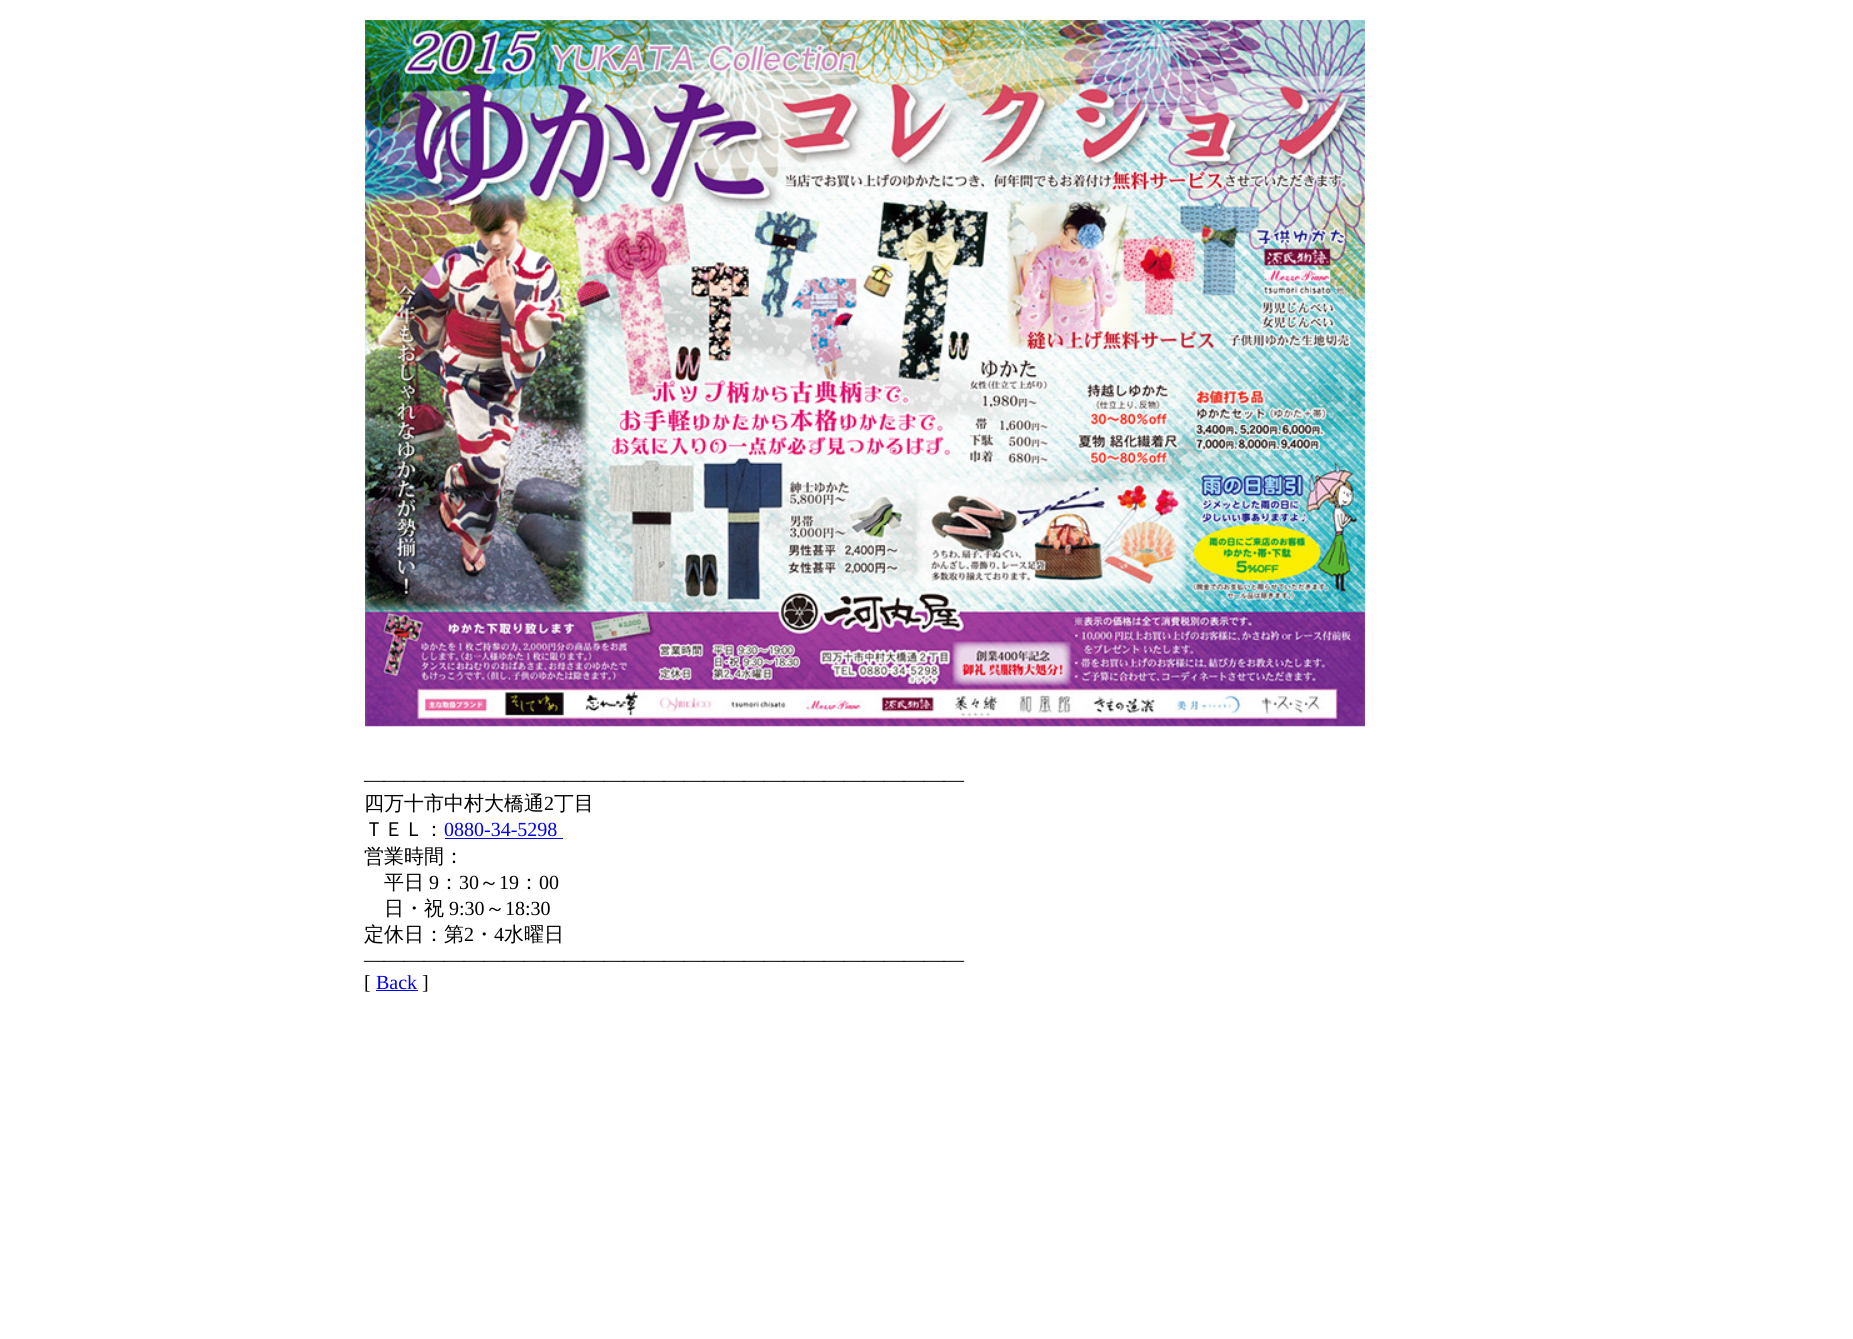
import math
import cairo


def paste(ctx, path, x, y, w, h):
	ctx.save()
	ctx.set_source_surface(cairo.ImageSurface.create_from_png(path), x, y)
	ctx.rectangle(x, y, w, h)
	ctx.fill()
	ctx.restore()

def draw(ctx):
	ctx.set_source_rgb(1, 1, 1)
	ctx.paint()
	paste(ctx, 'media/1.png', 365, 20, 1000, 707)
	ctx.select_font_face('Liberation Serif')
	ctx.set_font_size(20)
	ctx.set_source_rgb(0, 0, 0)
	ctx.move_to(364, 786)
	ctx.show_text('——————————————————————————————')
	ctx.select_font_face('WenQuanYi Zen Hei Medium')
	ctx.move_to(364, 810)
	ctx.show_text('四万十市中村大橋通')
	ctx.select_font_face('Liberation Serif')
	ctx.move_to(544, 810)
	ctx.show_text('2')
	ctx.select_font_face('WenQuanYi Zen Hei Medium')
	ctx.move_to(554, 810)
	ctx.show_text('丁目')
	ctx.move_to(364, 836)
	ctx.show_text('ＴＥＬ：')
	ctx.select_font_face('Liberation Serif')
	ctx.set_source_rgb(0, 0, 0.933)
	ctx.move_to(444, 836)
	ctx.show_text('0880-34-5298')
	ctx.rectangle(445, 838, 118, 1)
	ctx.fill()
	ctx.select_font_face('WenQuanYi Zen Hei Medium')
	ctx.set_source_rgb(0, 0, 0)
	ctx.move_to(364, 863)
	ctx.show_text('営業時間：')
	ctx.move_to(384, 889)
	ctx.show_text('平日')
	ctx.select_font_face('Liberation Serif')
	ctx.move_to(429, 889)
	ctx.show_text('9')
	ctx.select_font_face('WenQuanYi Zen Hei Medium')
	ctx.move_to(439, 889)
	ctx.show_text('：')
	ctx.select_font_face('Liberation Serif')
	ctx.move_to(459, 889)
	ctx.show_text('30')
	ctx.select_font_face('WenQuanYi Zen Hei Medium')
	ctx.move_to(479, 889)
	ctx.show_text('～')
	ctx.select_font_face('Liberation Serif')
	ctx.move_to(499, 889)
	ctx.show_text('19')
	ctx.select_font_face('WenQuanYi Zen Hei Medium')
	ctx.move_to(519, 889)
	ctx.show_text('：')
	ctx.select_font_face('Liberation Serif')
	ctx.move_to(539, 889)
	ctx.show_text('00')
	ctx.select_font_face('WenQuanYi Zen Hei Medium')
	ctx.move_to(384, 915)
	ctx.show_text('日・祝')
	ctx.select_font_face('Liberation Serif')
	ctx.move_to(449, 915)
	ctx.show_text('9:30')
	ctx.select_font_face('WenQuanYi Zen Hei Medium')
	ctx.move_to(485, 915)
	ctx.show_text('～')
	ctx.select_font_face('Liberation Serif')
	ctx.move_to(505, 915)
	ctx.show_text('18:30')
	ctx.select_font_face('WenQuanYi Zen Hei Medium')
	ctx.move_to(364, 941)
	ctx.show_text('定休日：第')
	ctx.select_font_face('Liberation Serif')
	ctx.move_to(464, 941)
	ctx.show_text('2')
	ctx.select_font_face('WenQuanYi Zen Hei Medium')
	ctx.move_to(474, 941)
	ctx.show_text('・')
	ctx.select_font_face('Liberation Serif')
	ctx.move_to(494, 941)
	ctx.show_text('4')
	ctx.select_font_face('WenQuanYi Zen Hei Medium')
	ctx.move_to(504, 941)
	ctx.show_text('水曜日')
	ctx.select_font_face('Liberation Serif')
	ctx.move_to(364, 966)
	ctx.show_text('——————————————————————————————')
	ctx.move_to(364, 989)
	ctx.show_text('[')
	ctx.set_source_rgb(0, 0, 0.933)
	ctx.move_to(376, 989)
	ctx.show_text('Back')
	ctx.rectangle(376, 990, 42, 1)
	ctx.fill()
	ctx.set_source_rgb(0, 0, 0)
	ctx.move_to(422, 989)
	ctx.show_text(']')


surface = cairo.ImageSurface(cairo.FORMAT_RGB24, 1853, 1339)
ctx = cairo.Context(surface)
options = cairo.FontOptions()
options.set_hint_metrics(cairo.HINT_METRICS_OFF)
options.set_hint_style(cairo.HINT_STYLE_NONE)
ctx.set_font_options(options)
ctx.set_miter_limit(4)
draw(ctx)
surface.write_to_png('image.png')
